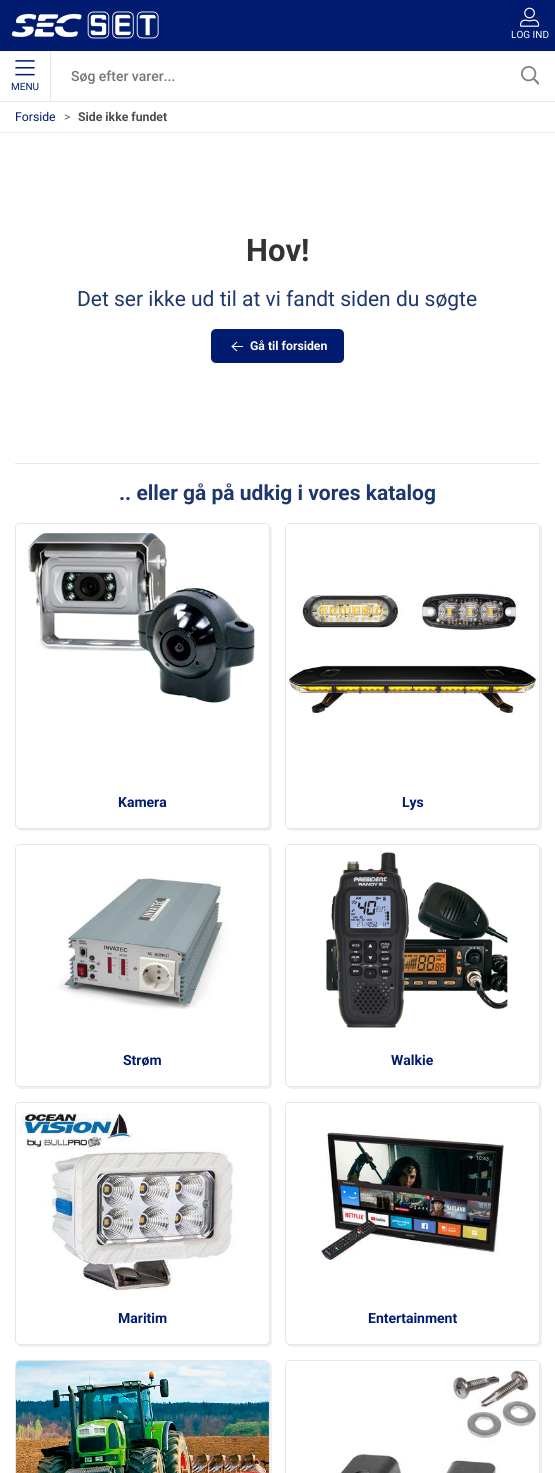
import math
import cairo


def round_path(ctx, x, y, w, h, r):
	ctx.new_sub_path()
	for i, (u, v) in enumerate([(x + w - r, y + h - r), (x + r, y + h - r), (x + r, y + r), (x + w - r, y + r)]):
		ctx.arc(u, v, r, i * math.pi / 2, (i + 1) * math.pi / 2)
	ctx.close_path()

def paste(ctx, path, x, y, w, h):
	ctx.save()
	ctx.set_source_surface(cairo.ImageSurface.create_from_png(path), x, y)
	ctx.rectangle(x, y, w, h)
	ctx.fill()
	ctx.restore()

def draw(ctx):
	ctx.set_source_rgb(1, 1, 1)
	ctx.paint()
	ctx.set_source_rgb(0.004, 0.106, 0.439)
	ctx.rectangle(0, 0, 555, 50)
	ctx.fill()
	ctx.set_source_rgb(0.004, 0.094, 0.396)
	ctx.rectangle(0, 50, 555, 1)
	ctx.fill()
	paste(ctx, 'media/1.png', 11, 11, 148, 28)
	paste(ctx, 'media/2.png', 520, 7, 20, 20)
	ctx.select_font_face('Roboto')
	ctx.set_font_size(10)
	ctx.set_source_rgb(1, 1, 1)
	ctx.move_to(511, 38)
	ctx.show_text('LOG IND')
	ctx.set_source_rgb(0.902, 0.902, 0.902)
	ctx.rectangle(0, 101, 555, 1)
	ctx.fill()
	ctx.select_font_face('Roboto Medium')
	ctx.set_font_size(14)
	ctx.set_source_rgb(0.459, 0.459, 0.459)
	ctx.move_to(71, 81)
	ctx.show_text('Søg efter varer...')
	paste(ctx, 'media/3.png', 521, 66, 18, 19)
	ctx.set_source_rgb(0.902, 0.902, 0.902)
	ctx.rectangle(50, 51, 1, 50)
	ctx.fill()
	paste(ctx, 'media/4.png', 15, 60, 20, 16)
	ctx.select_font_face('Roboto')
	ctx.set_font_size(10)
	ctx.set_source_rgb(0.004, 0.106, 0.439)
	ctx.move_to(11, 90)
	ctx.show_text('MENU')
	ctx.set_source_rgb(0.925, 0.925, 0.925)
	ctx.rectangle(0, 132, 555, 1)
	ctx.fill()
	ctx.set_font_size(12.25)
	ctx.set_source_rgb(0.004, 0.106, 0.439)
	ctx.move_to(15, 121)
	ctx.show_text('Forside')
	ctx.set_source_rgb(0.4, 0.4, 0.4)
	ctx.move_to(64, 121)
	ctx.show_text('>')
	ctx.select_font_face('Roboto', cairo.FONT_SLANT_NORMAL, cairo.FONT_WEIGHT_BOLD)
	ctx.set_source_rgb(0.302, 0.302, 0.302)
	ctx.move_to(78, 121)
	ctx.show_text('Side ikke fundet')
	ctx.set_font_size(31)
	ctx.set_source_rgb(0.2, 0.2, 0.2)
	ctx.move_to(246, 261)
	ctx.show_text('Hov!')
	ctx.select_font_face('Roboto')
	ctx.set_font_size(21)
	ctx.set_source_rgb(0.122, 0.216, 0.435)
	ctx.move_to(77, 306)
	ctx.show_text('Det ser ikke ud til at vi fandt siden du søgte')
	ctx.set_source_rgb(0.004, 0.106, 0.439)
	round_path(ctx, 211, 329, 133, 34, 5)
	ctx.fill()
	paste(ctx, 'media/5.png', 231, 341, 12, 11)
	ctx.select_font_face('Roboto', cairo.FONT_SLANT_NORMAL, cairo.FONT_WEIGHT_BOLD)
	ctx.set_font_size(12.25)
	ctx.set_source_rgb(1, 1, 1)
	ctx.move_to(250, 350)
	ctx.show_text('Gå til forsiden')
	ctx.set_source_rgb(0.902, 0.902, 0.902)
	ctx.rectangle(15, 463, 525, 1)
	ctx.fill()
	ctx.set_font_size(21)
	ctx.set_source_rgb(0.122, 0.216, 0.435)
	ctx.move_to(119, 500)
	ctx.show_text('.. eller gå på udkig i vores katalog')
	ctx.set_source_rgb(0.941, 0.941, 0.941)
	ctx.new_path()
	ctx.move_to(18, 828)
	ctx.curve_to(18, 830, 20, 831, 22, 831)
	ctx.line_to(267, 831)
	ctx.curve_to(270, 831, 272, 829, 272, 826)
	ctx.line_to(272, 530)
	ctx.curve_to(272, 528, 271, 526, 269, 526)
	ctx.line_to(270, 528)
	ctx.line_to(270, 824)
	ctx.curve_to(270, 827, 268, 829, 265, 829)
	ctx.line_to(20, 829)
	ctx.close_path()
	ctx.fill()
	round_path(ctx, 15.5, 523.5, 254, 305, 4.5)
	ctx.set_source_rgba(0, 0, 0, 0.1)
	ctx.set_line_width(1)
	ctx.stroke()
	paste(ctx, 'media/6.png', 16, 524, 253, 179)
	ctx.set_font_size(14)
	ctx.set_source_rgb(0.004, 0.106, 0.439)
	ctx.move_to(118, 807)
	ctx.show_text('Kamera')
	ctx.set_source_rgb(0.941, 0.941, 0.941)
	ctx.new_path()
	ctx.move_to(288, 828)
	ctx.curve_to(288, 830, 290, 831, 292, 831)
	ctx.line_to(537, 831)
	ctx.curve_to(540, 831, 542, 829, 542, 826)
	ctx.line_to(542, 530)
	ctx.curve_to(542, 528, 541, 526, 539, 526)
	ctx.line_to(540, 528)
	ctx.line_to(540, 824)
	ctx.curve_to(540, 827, 538, 829, 535, 829)
	ctx.line_to(290, 829)
	ctx.close_path()
	ctx.fill()
	round_path(ctx, 285.5, 523.5, 254, 305, 4.5)
	ctx.set_source_rgba(0, 0, 0, 0.1)
	ctx.stroke()
	paste(ctx, 'media/7.png', 286, 524, 253, 192)
	ctx.set_source_rgb(0.004, 0.106, 0.439)
	ctx.move_to(402, 807)
	ctx.show_text('Lys')
	ctx.set_source_rgb(0.941, 0.941, 0.941)
	ctx.new_path()
	ctx.move_to(18, 1086)
	ctx.curve_to(18, 1088, 20, 1089, 22, 1089)
	ctx.line_to(267, 1089)
	ctx.curve_to(270, 1089, 272, 1087, 272, 1084)
	ctx.line_to(272, 851)
	ctx.curve_to(272, 849, 271, 847, 269, 847)
	ctx.line_to(270, 849)
	ctx.line_to(270, 1082)
	ctx.curve_to(270, 1085, 268, 1087, 265, 1087)
	ctx.line_to(20, 1087)
	ctx.close_path()
	ctx.fill()
	round_path(ctx, 15.5, 844.5, 254, 242, 4.5)
	ctx.set_source_rgba(0, 0, 0, 0.1)
	ctx.stroke()
	paste(ctx, 'media/8.png', 16, 845, 253, 164)
	ctx.set_source_rgb(0.004, 0.106, 0.439)
	ctx.move_to(123, 1065)
	ctx.show_text('Strøm')
	ctx.set_source_rgb(0.941, 0.941, 0.941)
	ctx.new_path()
	ctx.move_to(288, 1086)
	ctx.curve_to(288, 1088, 290, 1089, 292, 1089)
	ctx.line_to(537, 1089)
	ctx.curve_to(540, 1089, 542, 1087, 542, 1084)
	ctx.line_to(542, 851)
	ctx.curve_to(542, 849, 541, 847, 539, 847)
	ctx.line_to(540, 849)
	ctx.line_to(540, 1082)
	ctx.curve_to(540, 1085, 538, 1087, 535, 1087)
	ctx.line_to(290, 1087)
	ctx.close_path()
	ctx.fill()
	round_path(ctx, 285.5, 844.5, 254, 242, 4.5)
	ctx.set_source_rgba(0, 0, 0, 0.1)
	ctx.stroke()
	paste(ctx, 'media/9.png', 286, 845, 253, 183)
	ctx.set_source_rgb(0.004, 0.106, 0.439)
	ctx.move_to(391, 1065)
	ctx.show_text('Walkie')
	ctx.set_source_rgb(0.941, 0.941, 0.941)
	ctx.new_path()
	ctx.move_to(18, 1344)
	ctx.curve_to(18, 1346, 20, 1347, 22, 1347)
	ctx.line_to(267, 1347)
	ctx.curve_to(270, 1347, 272, 1345, 272, 1342)
	ctx.line_to(272, 1109)
	ctx.curve_to(272, 1107, 271, 1105, 269, 1105)
	ctx.line_to(270, 1107)
	ctx.line_to(270, 1340)
	ctx.curve_to(270, 1343, 268, 1345, 265, 1345)
	ctx.line_to(20, 1345)
	ctx.close_path()
	ctx.fill()
	round_path(ctx, 15.5, 1102.5, 254, 242, 4.5)
	ctx.set_source_rgba(0, 0, 0, 0.1)
	ctx.stroke()
	paste(ctx, 'media/10.png', 16, 1103, 253, 188)
	ctx.set_source_rgb(0.004, 0.106, 0.439)
	ctx.move_to(118, 1323)
	ctx.show_text('Maritim')
	ctx.set_source_rgb(0.941, 0.941, 0.941)
	ctx.new_path()
	ctx.move_to(288, 1344)
	ctx.curve_to(288, 1346, 290, 1347, 292, 1347)
	ctx.line_to(537, 1347)
	ctx.curve_to(540, 1347, 542, 1345, 542, 1342)
	ctx.line_to(542, 1109)
	ctx.curve_to(542, 1107, 541, 1105, 539, 1105)
	ctx.line_to(540, 1107)
	ctx.line_to(540, 1340)
	ctx.curve_to(540, 1343, 538, 1345, 535, 1345)
	ctx.line_to(290, 1345)
	ctx.close_path()
	ctx.fill()
	round_path(ctx, 285.5, 1102.5, 254, 242, 4.5)
	ctx.set_source_rgba(0, 0, 0, 0.1)
	ctx.stroke()
	paste(ctx, 'media/11.png', 286, 1103, 253, 157)
	ctx.set_source_rgb(0.004, 0.106, 0.439)
	ctx.move_to(368, 1323)
	ctx.show_text('Entertainment')
	ctx.set_source_rgb(0.941, 0.941, 0.941)
	ctx.new_path()
	ctx.move_to(18, 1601)
	ctx.curve_to(18, 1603, 20, 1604, 22, 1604)
	ctx.line_to(267, 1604)
	ctx.curve_to(270, 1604, 272, 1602, 272, 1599)
	ctx.line_to(272, 1367)
	ctx.curve_to(272, 1365, 271, 1363, 269, 1363)
	ctx.line_to(270, 1365)
	ctx.line_to(270, 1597)
	ctx.curve_to(270, 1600, 268, 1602, 265, 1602)
	ctx.line_to(20, 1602)
	ctx.close_path()
	ctx.fill()
	round_path(ctx, 15.5, 1360.5, 254, 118, 4.5)
	ctx.set_source_rgba(0, 0, 0, 0.1)
	ctx.stroke()
	paste(ctx, 'media/12.png', 16, 1361, 253, 112)
	ctx.set_source_rgb(0.941, 0.941, 0.941)
	ctx.new_path()
	ctx.move_to(288, 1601)
	ctx.curve_to(288, 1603, 290, 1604, 292, 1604)
	ctx.line_to(537, 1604)
	ctx.curve_to(540, 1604, 542, 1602, 542, 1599)
	ctx.line_to(542, 1367)
	ctx.curve_to(542, 1365, 541, 1363, 539, 1363)
	ctx.line_to(540, 1365)
	ctx.line_to(540, 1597)
	ctx.curve_to(540, 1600, 538, 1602, 535, 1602)
	ctx.line_to(290, 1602)
	ctx.close_path()
	ctx.fill()
	round_path(ctx, 285.5, 1360.5, 254, 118, 4.5)
	ctx.set_source_rgba(0, 0, 0, 0.1)
	ctx.stroke()
	paste(ctx, 'media/13.png', 286, 1361, 253, 112)


surface = cairo.ImageSurface(cairo.FORMAT_RGB24, 555, 1473)
ctx = cairo.Context(surface)
options = cairo.FontOptions()
options.set_hint_metrics(cairo.HINT_METRICS_OFF)
options.set_hint_style(cairo.HINT_STYLE_NONE)
ctx.set_font_options(options)
ctx.set_miter_limit(4)
draw(ctx)
surface.write_to_png('image.png')
